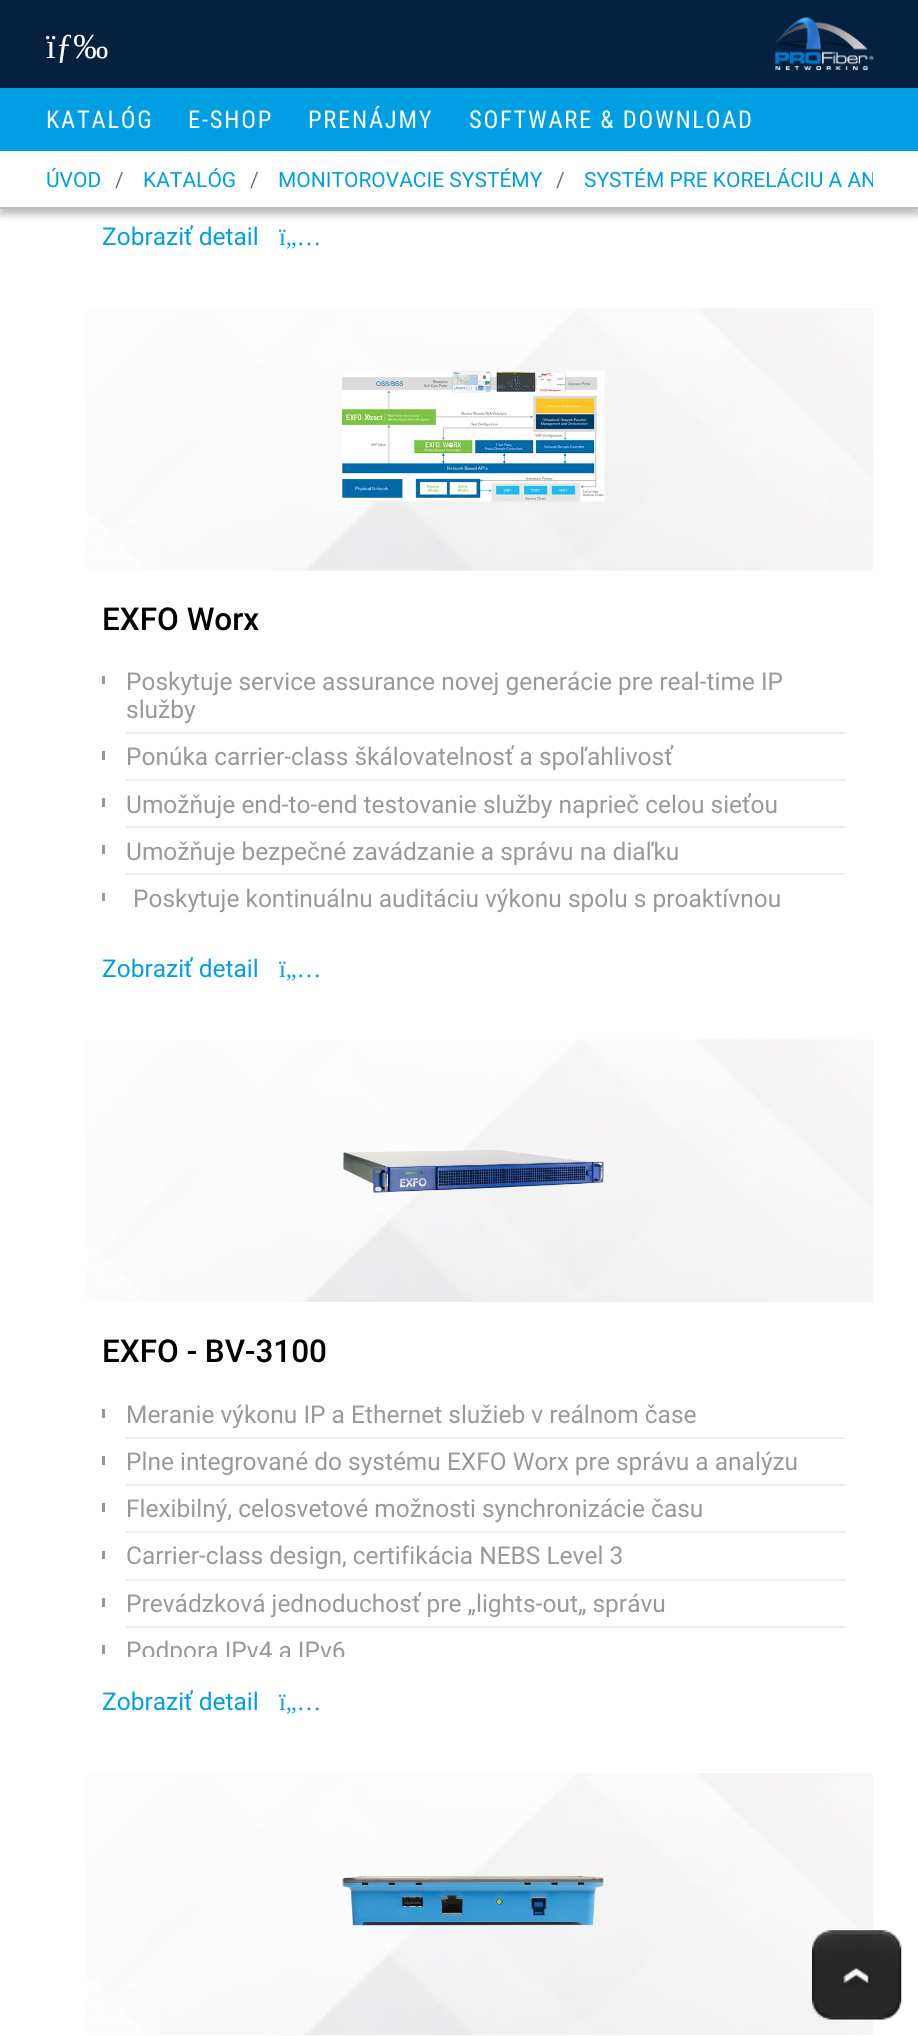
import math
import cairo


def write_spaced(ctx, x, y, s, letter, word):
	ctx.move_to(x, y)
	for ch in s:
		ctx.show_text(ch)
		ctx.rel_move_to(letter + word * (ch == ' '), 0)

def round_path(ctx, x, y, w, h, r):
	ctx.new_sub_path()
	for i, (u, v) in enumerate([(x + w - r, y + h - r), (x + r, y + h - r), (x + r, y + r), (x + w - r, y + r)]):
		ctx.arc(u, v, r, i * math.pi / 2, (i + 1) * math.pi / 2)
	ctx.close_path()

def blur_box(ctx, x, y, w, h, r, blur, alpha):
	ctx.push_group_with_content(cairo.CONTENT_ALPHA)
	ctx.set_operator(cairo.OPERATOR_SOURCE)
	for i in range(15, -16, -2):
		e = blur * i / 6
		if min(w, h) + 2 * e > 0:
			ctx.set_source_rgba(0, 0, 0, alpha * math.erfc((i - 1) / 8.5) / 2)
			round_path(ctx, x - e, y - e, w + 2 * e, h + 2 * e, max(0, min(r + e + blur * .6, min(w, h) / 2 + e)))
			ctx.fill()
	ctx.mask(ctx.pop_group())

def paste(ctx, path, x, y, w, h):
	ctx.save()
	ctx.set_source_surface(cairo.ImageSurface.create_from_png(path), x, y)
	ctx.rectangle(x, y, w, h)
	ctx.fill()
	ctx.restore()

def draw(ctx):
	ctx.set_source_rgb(1, 1, 1)
	ctx.paint()
	ctx.set_source_rgb(0.024, 0.129, 0.251)
	ctx.rectangle(0, 0, 918, 88)
	ctx.fill()
	ctx.select_font_face('Liberation Serif')
	ctx.set_font_size(35)
	ctx.set_source_rgb(1, 1, 1)
	ctx.move_to(46, 58)
	ctx.show_text('ïƒ‰')
	paste(ctx, 'media/1.png', 775, 17, 99, 53)
	ctx.set_source_rgb(0, 0.624, 0.89)
	ctx.rectangle(0, 88, 918, 63)
	ctx.fill()
	ctx.select_font_face('Roboto Condensed')
	ctx.set_font_size(24.5)
	ctx.set_source_rgb(1, 1, 1)
	for x, y, s in [
		(46, 128, 'KATALÓG'),
		(188, 128, 'E-SHOP'),
		(308, 128, 'PRENÁJMY'),
		(469, 128, 'SOFTWARE & DOWNLOAD'),
	]:
		write_spaced(ctx, x, y, s, 1.75, 0)
	ctx.set_source_rgb(0, 0, 0)
	blur_box(ctx, 0, 158, 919, 57, 0, 3.5, 0.25)
	ctx.set_source_rgb(1, 1, 1)
	ctx.rectangle(0, 152, 918, 55)
	ctx.fill()
	ctx.set_source_rgb(0.737, 0.737, 0.737)
	ctx.rectangle(0, 207, 918, 2)
	ctx.fill()
	ctx.select_font_face('Roboto')
	ctx.set_font_size(21)
	ctx.set_source_rgb(0, 0.624, 0.89)
	ctx.move_to(46, 187)
	ctx.show_text('ÚVOD')
	ctx.set_source_rgb(0.424, 0.459, 0.49)
	ctx.move_to(115, 187)
	ctx.show_text('/')
	ctx.set_source_rgb(0, 0.624, 0.89)
	ctx.move_to(143, 187)
	ctx.show_text('KATALÓG')
	ctx.set_source_rgb(0.424, 0.459, 0.49)
	ctx.move_to(250, 187)
	ctx.show_text('/')
	ctx.set_source_rgb(0, 0.624, 0.89)
	ctx.move_to(278, 187)
	ctx.show_text('MONITOROVACIE SYSTÉMY')
	ctx.set_source_rgb(0.424, 0.459, 0.49)
	ctx.move_to(556, 187)
	ctx.show_text('/')
	ctx.save()
	round_path(ctx, 46, 151, 827, 56, 7)
	ctx.clip()
	ctx.set_source_rgb(0, 0.624, 0.89)
	ctx.move_to(584, 187)
	ctx.show_text('SYSTÉM PRE KORELÁCIU A AN')
	ctx.restore()
	ctx.set_font_size(24.5)
	ctx.set_source_rgb(0, 0.624, 0.89)
	ctx.move_to(102, 245)
	ctx.show_text('Zobraziť detail')
	ctx.select_font_face('Liberation Serif')
	ctx.move_to(279, 245)
	ctx.show_text('ï„…')
	paste(ctx, 'media/2.png', 86, 308, 787, 263)
	paste(ctx, 'media/3.png', 342, 370, 263, 132)
	ctx.select_font_face('Roboto Medium')
	ctx.set_font_size(31.5)
	ctx.set_source_rgb(0, 0, 0)
	ctx.move_to(102, 630)
	ctx.show_text('EXFO Worx')
	ctx.set_source_rgb(0.933, 0.933, 0.933)
	ctx.rectangle(126, 732, 719, 2)
	ctx.fill()
	ctx.set_source_rgb(0.6, 0.6, 0.6)
	ctx.rectangle(102, 676, 3, 8)
	ctx.fill()
	ctx.select_font_face('Roboto')
	ctx.set_font_size(24.5)
	ctx.move_to(126, 690)
	ctx.show_text('Poskytuje service assurance novej generácie pre real-time IP')
	ctx.move_to(126, 718)
	ctx.show_text('služby')
	ctx.set_source_rgb(0.933, 0.933, 0.933)
	ctx.rectangle(126, 779, 719, 2)
	ctx.fill()
	ctx.set_source_rgb(0.6, 0.6, 0.6)
	ctx.rectangle(102, 751, 3, 9)
	ctx.fill()
	ctx.move_to(126, 765)
	ctx.show_text('Ponúka carrier-class škálovatelnosť a spoľahlivosť')
	ctx.set_source_rgb(0.933, 0.933, 0.933)
	ctx.rectangle(126, 826, 719, 2)
	ctx.fill()
	ctx.set_source_rgb(0.6, 0.6, 0.6)
	ctx.rectangle(102, 798, 3, 9)
	ctx.fill()
	ctx.move_to(126, 813)
	ctx.show_text('Umožňuje end-to-end testovanie služby naprieč celou sieťou')
	ctx.set_source_rgb(0.933, 0.933, 0.933)
	ctx.rectangle(126, 873, 719, 2)
	ctx.fill()
	ctx.set_source_rgb(0.6, 0.6, 0.6)
	ctx.rectangle(102, 845, 3, 9)
	ctx.fill()
	ctx.move_to(126, 860)
	ctx.show_text('Umožňuje bezpečné zavádzanie a správu na diaľku')
	ctx.rectangle(102, 893, 3, 8)
	ctx.fill()
	ctx.move_to(133, 907)
	ctx.show_text('Poskytuje kontinuálnu auditáciu výkonu spolu s proaktívnou')
	ctx.set_source_rgb(0, 0.624, 0.89)
	ctx.move_to(102, 977)
	ctx.show_text('Zobraziť detail')
	ctx.select_font_face('Liberation Serif')
	ctx.move_to(279, 977)
	ctx.show_text('ï„…')
	paste(ctx, 'media/4.png', 86, 1039, 787, 263)
	paste(ctx, 'media/5.png', 343, 1150, 261, 43)
	ctx.select_font_face('Roboto Medium')
	ctx.set_font_size(31.5)
	ctx.set_source_rgb(0, 0, 0)
	ctx.move_to(102, 1362)
	ctx.show_text('EXFO - BV-3100')
	ctx.set_source_rgb(0.933, 0.933, 0.933)
	ctx.rectangle(126, 1437, 719, 2)
	ctx.fill()
	ctx.set_source_rgb(0.6, 0.6, 0.6)
	ctx.rectangle(102, 1409, 3, 9)
	ctx.fill()
	ctx.select_font_face('Roboto')
	ctx.set_font_size(24.5)
	ctx.move_to(126, 1423)
	ctx.show_text('Meranie výkonu IP a Ethernet služieb v reálnom čase')
	ctx.set_source_rgb(0.933, 0.933, 0.933)
	ctx.rectangle(126, 1484, 719, 2)
	ctx.fill()
	ctx.set_source_rgb(0.6, 0.6, 0.6)
	ctx.rectangle(102, 1456, 3, 9)
	ctx.fill()
	ctx.move_to(126, 1470)
	ctx.show_text('Plne integrované do systému EXFO Worx pre správu a analýzu')
	ctx.set_source_rgb(0.933, 0.933, 0.933)
	ctx.rectangle(126, 1531, 719, 2)
	ctx.fill()
	ctx.set_source_rgb(0.6, 0.6, 0.6)
	ctx.rectangle(102, 1503, 3, 9)
	ctx.fill()
	ctx.move_to(126, 1517)
	ctx.show_text('Flexibilný, celosvetové možnosti synchronizácie času')
	ctx.set_source_rgb(0.933, 0.933, 0.933)
	ctx.rectangle(126, 1579, 719, 2)
	ctx.fill()
	ctx.set_source_rgb(0.6, 0.6, 0.6)
	ctx.rectangle(102, 1551, 3, 8)
	ctx.fill()
	ctx.move_to(126, 1564)
	ctx.show_text('Carrier-class design, certifikácia NEBS Level 3')
	ctx.set_source_rgb(0.933, 0.933, 0.933)
	ctx.rectangle(126, 1626, 719, 2)
	ctx.fill()
	ctx.set_source_rgb(0.6, 0.6, 0.6)
	ctx.rectangle(102, 1598, 3, 9)
	ctx.fill()
	ctx.move_to(126, 1612)
	ctx.show_text('Prevádzková jednoduchosť pre „lights-out„ správu')
	ctx.rectangle(102, 1645, 3, 9)
	ctx.fill()
	ctx.save()
	ctx.rectangle(102, 1400, 743, 257)
	ctx.clip()
	ctx.move_to(126, 1659)
	ctx.show_text('Podpora IPv4 a IPv6')
	ctx.restore()
	ctx.set_source_rgb(0, 0.624, 0.89)
	ctx.move_to(102, 1710)
	ctx.show_text('Zobraziť detail')
	ctx.select_font_face('Liberation Serif')
	ctx.move_to(279, 1710)
	ctx.show_text('ï„…')
	paste(ctx, 'media/6.png', 86, 1773, 787, 263)
	paste(ctx, 'media/7.png', 342, 1876, 262, 50)
	paste(ctx, 'media/8.png', 812, 1930, 90, 90)


surface = cairo.ImageSurface(cairo.FORMAT_RGB24, 918, 2036)
ctx = cairo.Context(surface)
options = cairo.FontOptions()
options.set_hint_metrics(cairo.HINT_METRICS_OFF)
options.set_hint_style(cairo.HINT_STYLE_NONE)
ctx.set_font_options(options)
ctx.set_miter_limit(4)
draw(ctx)
surface.write_to_png('image.png')
